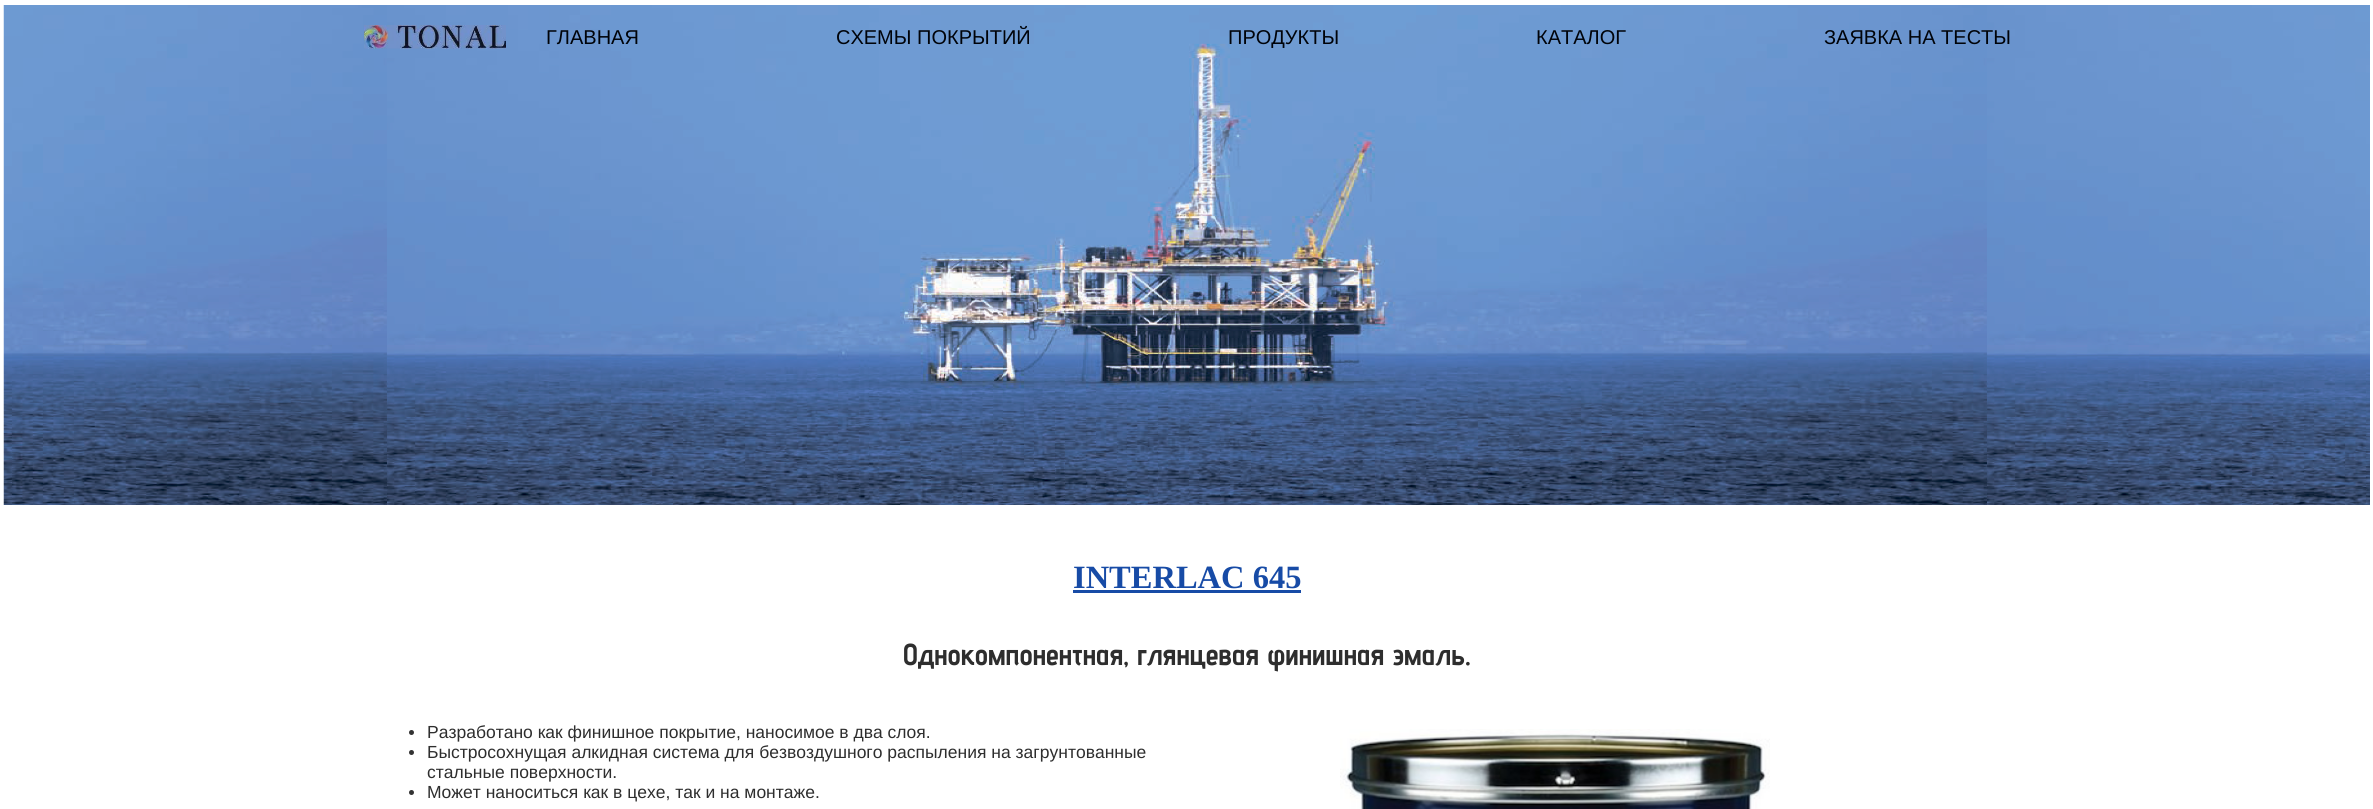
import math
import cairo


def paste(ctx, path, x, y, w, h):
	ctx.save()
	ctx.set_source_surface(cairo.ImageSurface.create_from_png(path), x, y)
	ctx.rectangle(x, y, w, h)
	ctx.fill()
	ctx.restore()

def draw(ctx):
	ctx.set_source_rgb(1, 1, 1)
	ctx.paint()
	paste(ctx, 'media/1.png', 3, 5, 2367, 500)
	paste(ctx, 'media/2.png', 363, 25, 143, 24)
	ctx.select_font_face('Liberation Sans')
	ctx.set_font_size(20)
	ctx.set_source_rgb(0, 0.012, 0.039)
	for x, y, s in [
		(546, 44, 'ГЛАВНАЯ'),
		(836, 44, 'СХЕМЫ ПОКРЫТИЙ'),
		(1228, 44, 'ПРОДУКТЫ'),
		(1536, 44, 'КАТАЛОГ'),
		(1824, 44, 'ЗАЯВКА НА ТЕСТЫ'),
	]:
		ctx.move_to(x, y)
		ctx.show_text(s)
	ctx.select_font_face('Liberation Serif', cairo.FONT_SLANT_NORMAL, cairo.FONT_WEIGHT_BOLD)
	ctx.set_font_size(32.5)
	ctx.set_source_rgb(0.09, 0.294, 0.651)
	ctx.move_to(1073, 588)
	ctx.show_text('INTERLAC 645')
	ctx.rectangle(1073, 590, 228, 3)
	ctx.fill()
	ctx.select_font_face('Advent Pro', cairo.FONT_SLANT_NORMAL, cairo.FONT_WEIGHT_BOLD)
	ctx.set_font_size(30)
	ctx.set_source_rgb(0.18, 0.18, 0.18)
	ctx.move_to(903, 665)
	ctx.show_text('Однокомпонентная, глянцевая финишная эмаль.')
	ctx.set_source_rgb(0.2, 0.2, 0.2)
	ctx.new_path()
	ctx.arc(411.5, 732.5, 2.5, 0, 2 * math.pi)
	ctx.fill()
	ctx.select_font_face('Liberation Sans')
	ctx.set_font_size(17.5)
	ctx.set_source_rgb(0.18, 0.18, 0.18)
	ctx.move_to(427, 738)
	ctx.show_text('Разработано как финишное покрытие, наносимое в два слоя.')
	ctx.set_source_rgb(0.2, 0.2, 0.2)
	ctx.new_path()
	ctx.arc(411.5, 752.5, 2.5, 0, 2 * math.pi)
	ctx.fill()
	ctx.set_source_rgb(0.18, 0.18, 0.18)
	ctx.move_to(427, 758)
	ctx.show_text('Быстросохнущая алкидная система для безвоздушного распыления на загрунтованные')
	ctx.move_to(427, 778)
	ctx.show_text('стальные поверхности.')
	ctx.set_source_rgb(0.2, 0.2, 0.2)
	ctx.new_path()
	ctx.arc(411.5, 792.5, 2.5, 0, 2 * math.pi)
	ctx.fill()
	ctx.set_source_rgb(0.18, 0.18, 0.18)
	ctx.move_to(427, 798)
	ctx.show_text('Может наноситься как в цехе, так и на монтаже.')
	paste(ctx, 'media/3.png', 1340, 729, 430, 80)


surface = cairo.ImageSurface(cairo.FORMAT_RGB24, 2373, 809)
ctx = cairo.Context(surface)
options = cairo.FontOptions()
options.set_hint_metrics(cairo.HINT_METRICS_OFF)
options.set_hint_style(cairo.HINT_STYLE_NONE)
ctx.set_font_options(options)
ctx.set_miter_limit(4)
draw(ctx)
surface.write_to_png('image.png')
